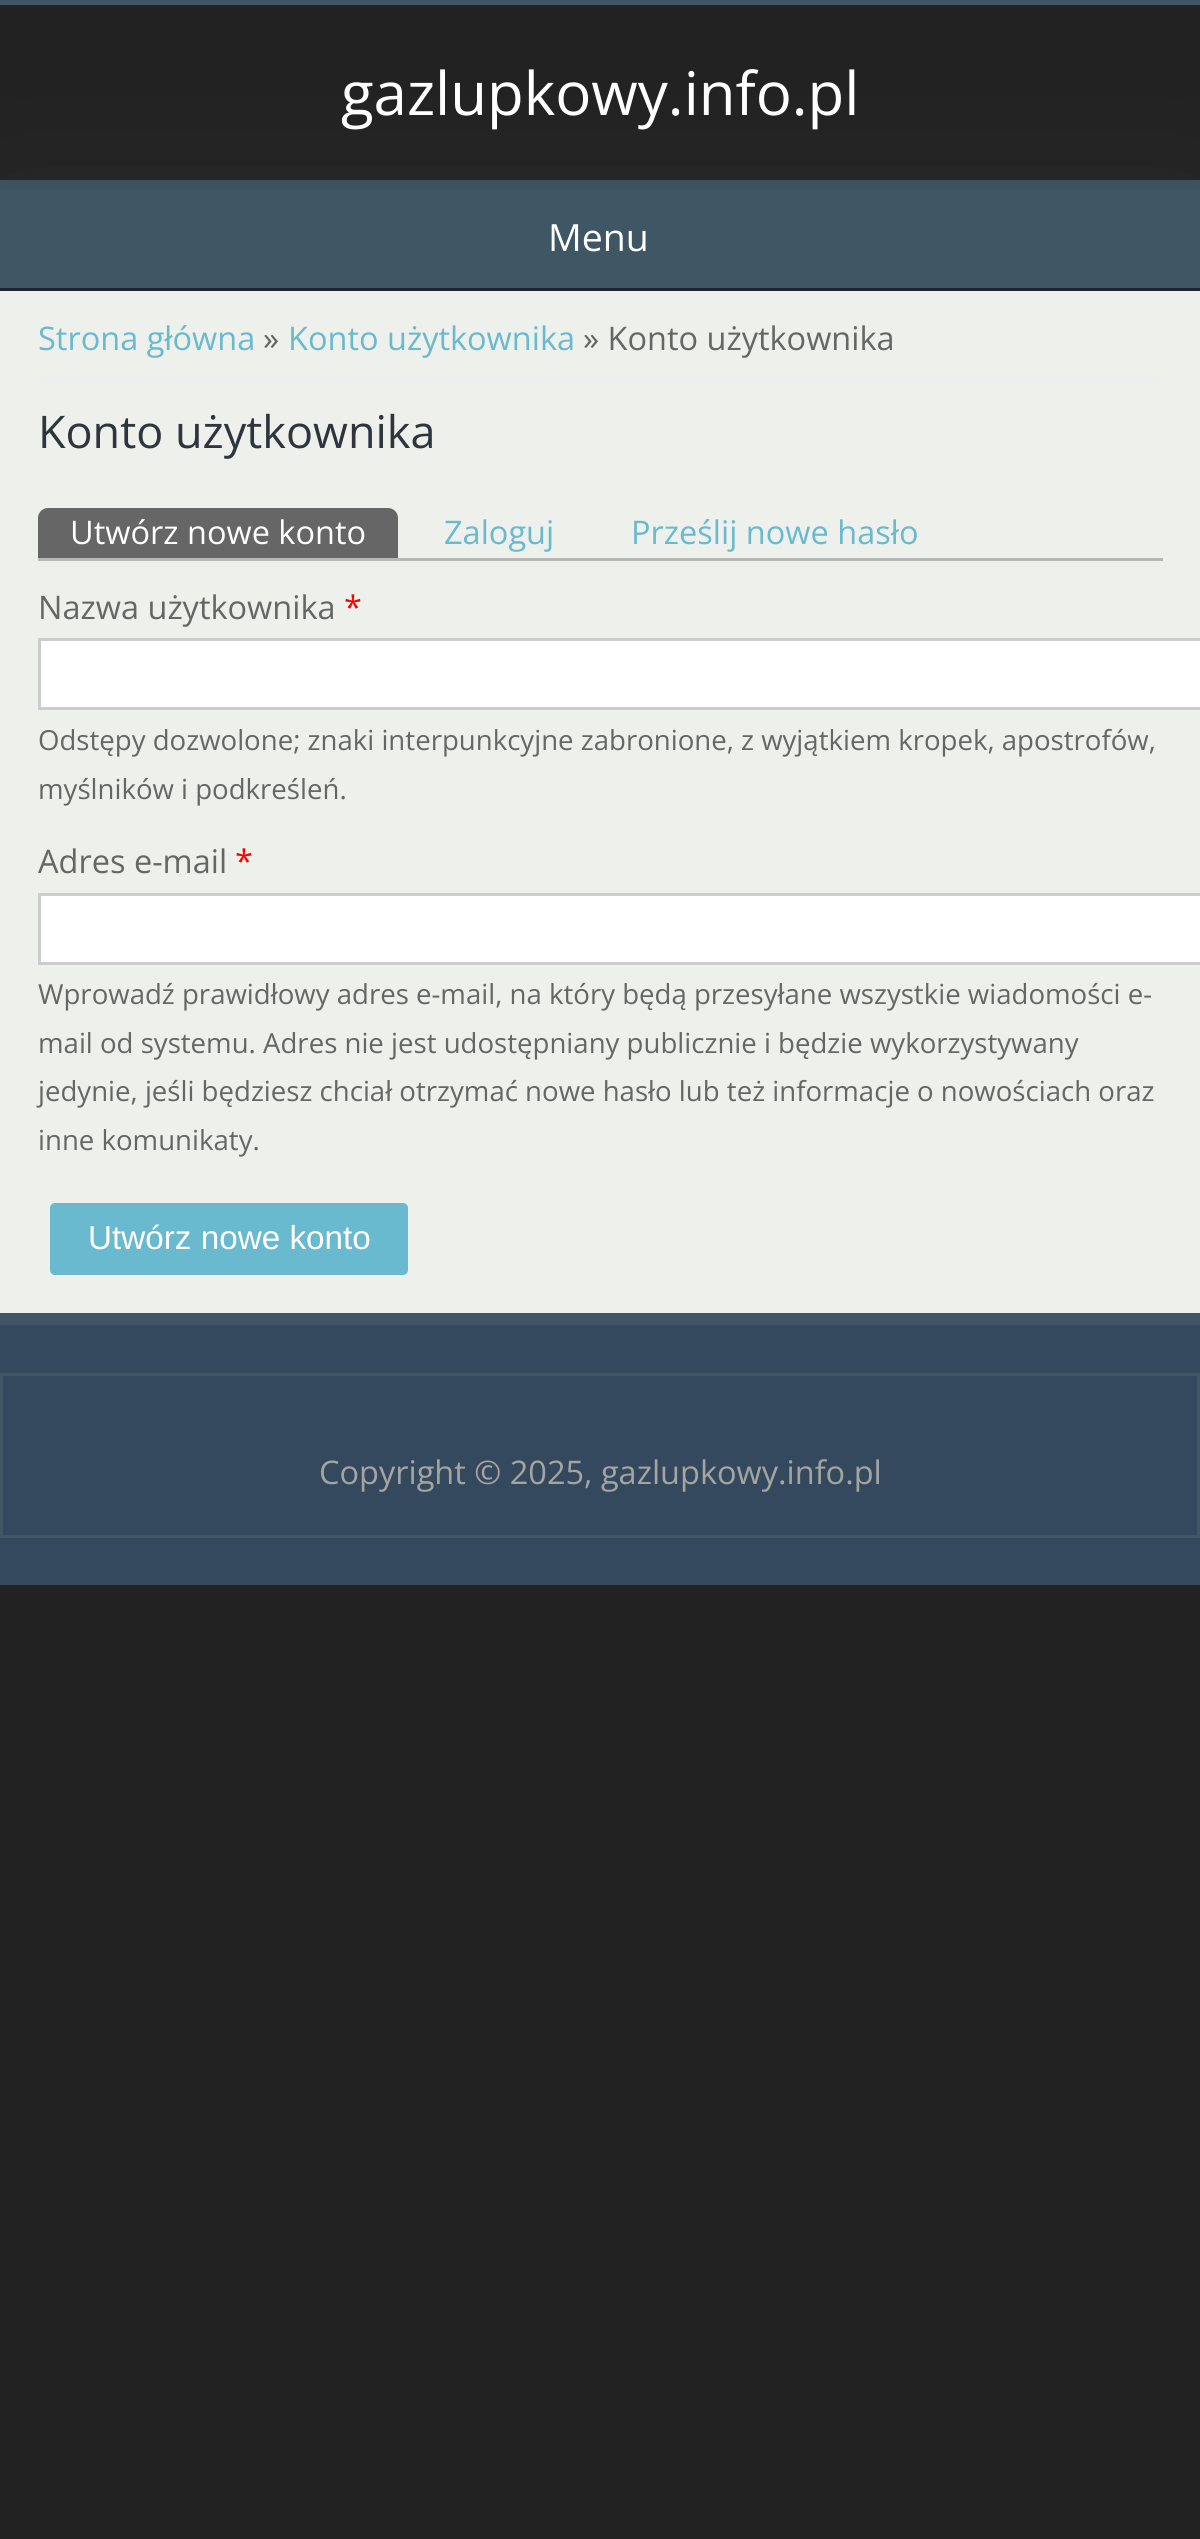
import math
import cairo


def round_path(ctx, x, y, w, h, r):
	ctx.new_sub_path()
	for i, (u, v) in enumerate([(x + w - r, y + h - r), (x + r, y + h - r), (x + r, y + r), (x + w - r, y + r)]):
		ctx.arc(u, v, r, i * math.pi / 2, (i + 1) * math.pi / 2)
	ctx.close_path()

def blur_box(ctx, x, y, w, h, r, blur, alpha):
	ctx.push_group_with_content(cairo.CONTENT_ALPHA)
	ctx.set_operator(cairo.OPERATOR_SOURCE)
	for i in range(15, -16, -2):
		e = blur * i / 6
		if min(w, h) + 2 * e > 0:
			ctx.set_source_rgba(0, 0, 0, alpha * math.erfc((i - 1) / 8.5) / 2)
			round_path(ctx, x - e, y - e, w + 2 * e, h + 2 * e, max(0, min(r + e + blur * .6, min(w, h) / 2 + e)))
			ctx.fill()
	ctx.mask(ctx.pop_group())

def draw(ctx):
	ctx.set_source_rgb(0.133, 0.133, 0.133)
	ctx.paint()
	ctx.set_source_rgb(0.247, 0.341, 0.396)
	ctx.rectangle(0, 180, 1200, 10)
	ctx.fill()
	ctx.set_source_rgb(0.22, 0.22, 0.22)
	blur_box(ctx, 0, 290, 1200, 1023, 0, 106, 1)
	ctx.set_source_rgb(0.247, 0.341, 0.396)
	ctx.rectangle(0, 0, 1200, 5)
	ctx.fill()
	ctx.select_font_face('Open Sans')
	ctx.set_font_size(60)
	ctx.set_source_rgb(1, 1, 1)
	ctx.move_to(341, 115)
	ctx.show_text('gazlupkowy.info.pl')
	ctx.set_source_rgb(0.247, 0.341, 0.396)
	ctx.rectangle(0, 190, 1200, 98)
	ctx.fill()
	ctx.set_source_rgb(0.118, 0.149, 0.176)
	ctx.rectangle(0, 288, 1200, 3)
	ctx.fill()
	ctx.set_font_size(37.5)
	ctx.set_source_rgb(1, 1, 1)
	ctx.move_to(548, 251)
	ctx.show_text('Menu')
	ctx.set_source_rgb(0.933, 0.945, 0.918)
	ctx.rectangle(0, 291, 1200, 1022)
	ctx.fill()
	ctx.set_source_rgb(0.933, 0.933, 0.933)
	ctx.rectangle(38, 380, 1125, 3)
	ctx.fill()
	ctx.set_font_size(32.5)
	ctx.set_source_rgb(0.412, 0.725, 0.812)
	ctx.move_to(38, 350)
	ctx.show_text('Strona główna')
	ctx.set_source_rgb(0.4, 0.4, 0.4)
	ctx.move_to(263, 350)
	ctx.show_text('»')
	ctx.set_source_rgb(0.412, 0.725, 0.812)
	ctx.move_to(288, 350)
	ctx.show_text('Konto użytkownika')
	ctx.set_source_rgb(0.4, 0.4, 0.4)
	ctx.move_to(583, 350)
	ctx.show_text('» Konto użytkownika')
	ctx.set_font_size(45)
	ctx.set_source_rgb(0.184, 0.208, 0.243)
	ctx.move_to(38, 448)
	ctx.show_text('Konto użytkownika')
	ctx.set_source_rgb(0.718, 0.718, 0.718)
	ctx.rectangle(38, 558, 1125, 3)
	ctx.fill()
	ctx.set_source_rgb(0.4, 0.4, 0.4)
	ctx.new_path()
	ctx.move_to(48, 508)
	ctx.line_to(388, 508)
	ctx.curve_to(393.5, 508, 398, 512.5, 398, 518)
	ctx.line_to(398, 558)
	ctx.line_to(38, 558)
	ctx.line_to(38, 518)
	ctx.curve_to(38, 512.5, 42.5, 508, 48, 508)
	ctx.close_path()
	ctx.fill()
	ctx.set_font_size(32.5)
	ctx.set_source_rgb(1, 1, 1)
	ctx.move_to(70, 544)
	ctx.show_text('Utwórz nowe konto')
	ctx.set_source_rgb(0.412, 0.725, 0.812)
	ctx.move_to(444, 544)
	ctx.show_text('Zaloguj')
	ctx.move_to(631, 544)
	ctx.show_text('Prześlij nowe hasło')
	ctx.set_source_rgb(0.4, 0.4, 0.4)
	ctx.move_to(38, 619)
	ctx.show_text('Nazwa użytkownika')
	ctx.set_source_rgb(1, 0, 0)
	ctx.move_to(344, 619)
	ctx.show_text('*')
	ctx.set_source_rgb(1, 1, 1)
	ctx.rectangle(39.5, 639.5, 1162, 69)
	ctx.fill_preserve()
	ctx.set_source_rgb(0.8, 0.8, 0.8)
	ctx.set_line_width(3)
	ctx.stroke()
	ctx.set_font_size(27.6)
	ctx.set_source_rgb(0.4, 0.4, 0.4)
	ctx.move_to(38, 750)
	ctx.show_text('Odstępy dozwolone; znaki interpunkcyjne zabronione, z wyjątkiem kropek, apostrofów,')
	ctx.move_to(38, 799)
	ctx.show_text('myślników i podkreśleń.')
	ctx.set_font_size(32.5)
	ctx.move_to(38, 873)
	ctx.show_text('Adres e-mail')
	ctx.set_source_rgb(1, 0, 0)
	ctx.move_to(235, 873)
	ctx.show_text('*')
	ctx.set_source_rgb(1, 1, 1)
	ctx.rectangle(39.5, 894.5, 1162, 69)
	ctx.fill_preserve()
	ctx.set_source_rgb(0.8, 0.8, 0.8)
	ctx.stroke()
	ctx.set_font_size(27.6)
	ctx.set_source_rgb(0.4, 0.4, 0.4)
	for x, y, s in [
		(38, 1004, 'Wprowadź prawidłowy adres e-mail, na który będą przesyłane wszystkie wiadomości e-'),
		(38, 1053, 'mail od systemu. Adres nie jest udostępniany publicznie i będzie wykorzystywany'),
		(38, 1101, 'jedynie, jeśli będziesz chciał otrzymać nowe hasło lub też informacje o nowościach oraz'),
		(38, 1150, 'inne komunikaty.'),
	]:
		ctx.move_to(x, y)
		ctx.show_text(s)
	ctx.set_source_rgb(0.412, 0.725, 0.812)
	round_path(ctx, 50, 1203, 358, 72, 5)
	ctx.fill()
	ctx.select_font_face('Liberation Sans')
	ctx.set_font_size(33.25)
	ctx.set_source_rgb(1, 1, 1)
	ctx.move_to(88, 1249)
	ctx.show_text('Utwórz nowe konto')
	ctx.set_source_rgb(0.204, 0.286, 0.369)
	ctx.rectangle(0, 1325, 1200, 260)
	ctx.fill()
	ctx.set_source_rgb(0.247, 0.341, 0.396)
	ctx.rectangle(0, 1313, 1200, 12)
	ctx.fill()
	ctx.rectangle(1.5, 1374.5, 1197, 162)
	ctx.stroke()
	ctx.select_font_face('Open Sans')
	ctx.set_font_size(32.5)
	ctx.set_source_rgb(0.639, 0.647, 0.627)
	ctx.move_to(319, 1484)
	ctx.show_text('Copyright © 2025, gazlupkowy.info.pl')


surface = cairo.ImageSurface(cairo.FORMAT_RGB24, 1200, 2539)
ctx = cairo.Context(surface)
options = cairo.FontOptions()
options.set_hint_metrics(cairo.HINT_METRICS_OFF)
options.set_hint_style(cairo.HINT_STYLE_NONE)
ctx.set_font_options(options)
ctx.set_miter_limit(4)
draw(ctx)
surface.write_to_png('image.png')
